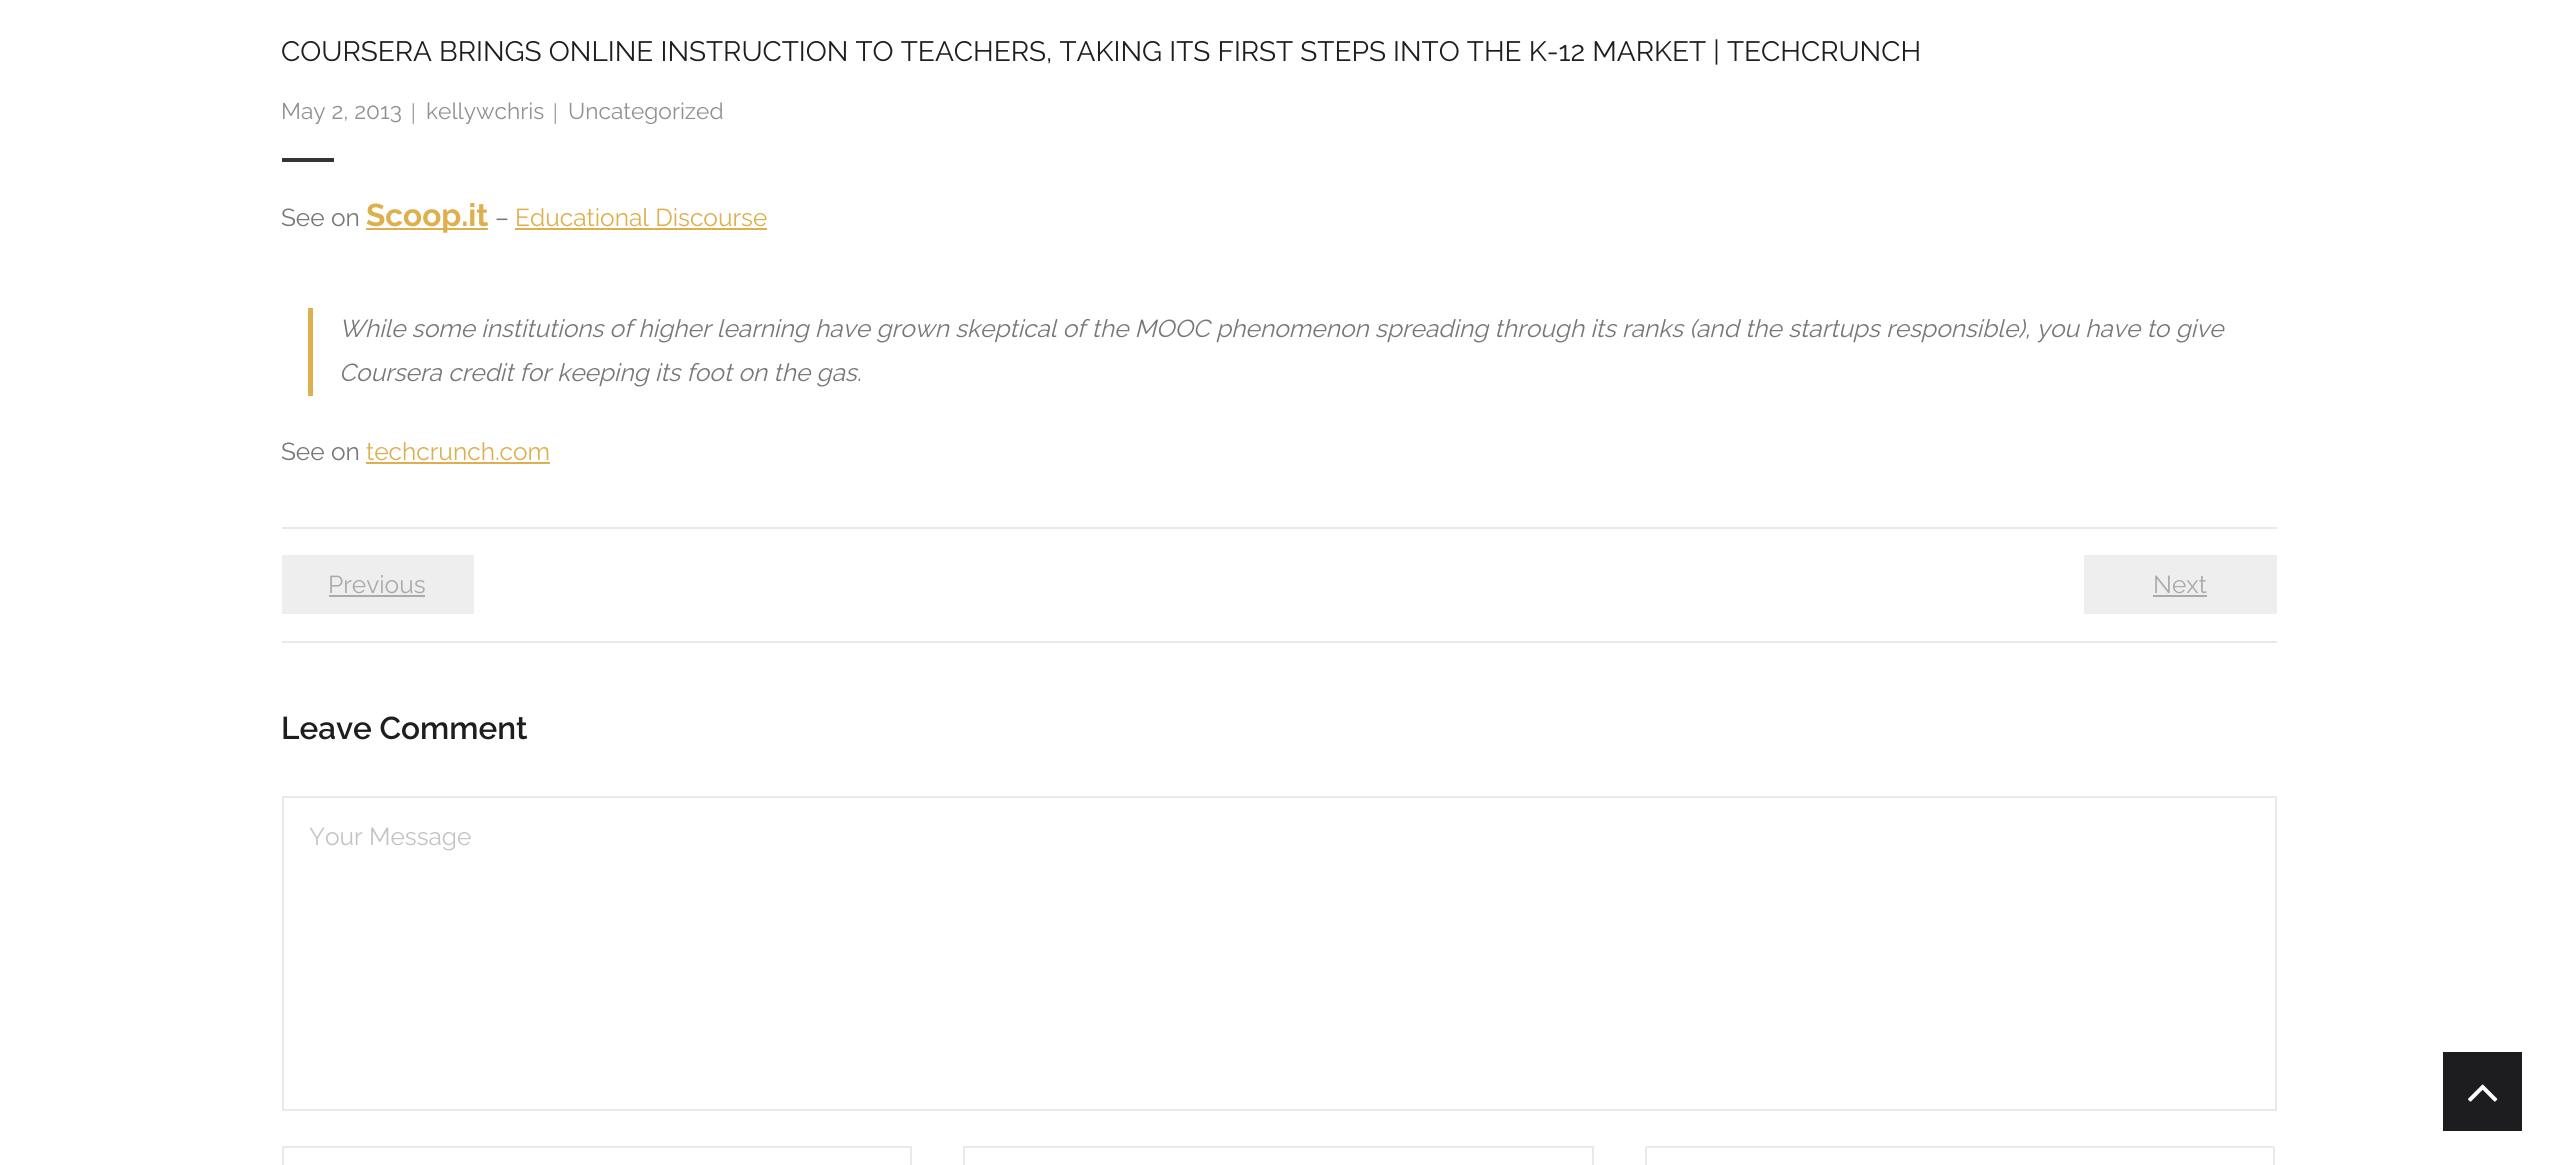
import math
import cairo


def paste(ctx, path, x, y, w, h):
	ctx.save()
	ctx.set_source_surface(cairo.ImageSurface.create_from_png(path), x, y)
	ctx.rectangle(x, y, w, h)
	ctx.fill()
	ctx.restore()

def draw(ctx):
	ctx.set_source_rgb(1, 1, 1)
	ctx.paint()
	ctx.select_font_face('Raleway')
	ctx.set_font_size(28)
	ctx.set_source_rgb(0.118, 0.118, 0.118)
	ctx.move_to(281, 61)
	ctx.show_text('COURSERA BRINGS ONLINE INSTRUCTION TO TEACHERS, TAKING ITS FIRST STEPS INTO THE K-12 MARKET | TECHCRUNCH')
	ctx.set_font_size(22.75)
	ctx.set_source_rgb(0.569, 0.569, 0.569)
	ctx.move_to(281, 119)
	ctx.show_text('May 2, 2013')
	ctx.select_font_face('Liberation Serif')
	ctx.move_to(411, 119)
	ctx.show_text('|')
	ctx.select_font_face('Raleway')
	ctx.move_to(426, 119)
	ctx.show_text('kellywchris')
	ctx.select_font_face('Liberation Serif')
	ctx.move_to(553, 119)
	ctx.show_text('|')
	ctx.select_font_face('Raleway')
	ctx.move_to(568, 119)
	ctx.show_text('Uncategorized')
	ctx.set_source_rgb(0.208, 0.208, 0.208)
	ctx.rectangle(282, 158, 52, 4)
	ctx.fill()
	ctx.set_font_size(24.5)
	ctx.set_source_rgb(0.467, 0.467, 0.467)
	ctx.move_to(281, 226)
	ctx.show_text('See on')
	ctx.set_source_rgb(0.867, 0.686, 0.302)
	ctx.rectangle(366, 228, 122, 2)
	ctx.fill()
	ctx.select_font_face('Raleway', cairo.FONT_SLANT_NORMAL, cairo.FONT_WEIGHT_BOLD)
	ctx.set_font_size(31.5)
	ctx.move_to(366, 226)
	ctx.show_text('Scoop.it')
	ctx.select_font_face('Raleway')
	ctx.set_font_size(24.5)
	ctx.set_source_rgb(0.467, 0.467, 0.467)
	ctx.move_to(495, 226)
	ctx.show_text('–')
	ctx.set_source_rgb(0.867, 0.686, 0.302)
	ctx.move_to(515, 226)
	ctx.show_text('Educational Discourse')
	ctx.rectangle(515, 228, 252, 2)
	ctx.fill()
	ctx.rectangle(308, 308, 5, 88)
	ctx.fill()
	ctx.select_font_face('Raleway', cairo.FONT_SLANT_ITALIC)
	ctx.set_source_rgb(0.467, 0.467, 0.467)
	ctx.move_to(339, 337)
	ctx.show_text('While some institutions of higher learning have grown skeptical of the MOOC phenomenon spreading through its ranks (and the startups responsible), you have to give')
	ctx.move_to(339, 381)
	ctx.show_text('Coursera credit for keeping its foot on the gas.')
	ctx.select_font_face('Raleway')
	ctx.move_to(281, 460)
	ctx.show_text('See on')
	ctx.set_source_rgb(0.867, 0.686, 0.302)
	ctx.move_to(366, 460)
	ctx.show_text('techcrunch.com')
	ctx.rectangle(366, 462, 184, 2)
	ctx.fill()
	ctx.set_source_rgb(0.914, 0.914, 0.914)
	ctx.rectangle(282, 527, 1995, 2)
	ctx.rectangle(282, 641, 1995, 2)
	ctx.fill()
	ctx.set_source_rgb(0.933, 0.933, 0.933)
	ctx.rectangle(282, 555, 192, 59)
	ctx.fill()
	ctx.set_source_rgb(0.667, 0.667, 0.667)
	ctx.move_to(328, 593)
	ctx.show_text('Previous')
	ctx.rectangle(329, 595, 96, 2)
	ctx.fill()
	ctx.set_source_rgb(0.933, 0.933, 0.933)
	ctx.rectangle(2084, 555, 193, 59)
	ctx.fill()
	ctx.set_source_rgb(0.667, 0.667, 0.667)
	ctx.move_to(2153, 593)
	ctx.show_text('Next')
	ctx.rectangle(2153, 595, 54, 2)
	ctx.fill()
	ctx.select_font_face('Raleway SemiBold')
	ctx.set_font_size(31.5)
	ctx.set_source_rgb(0.118, 0.118, 0.118)
	ctx.move_to(281, 739)
	ctx.show_text('Leave Comment')
	ctx.rectangle(283, 797, 1993, 313)
	ctx.set_source_rgb(0.914, 0.914, 0.914)
	ctx.stroke()
	ctx.select_font_face('Raleway')
	ctx.set_font_size(24.5)
	ctx.set_source_rgb(0.765, 0.765, 0.765)
	ctx.move_to(309, 845)
	ctx.show_text('Your Message')
	ctx.rectangle(283, 1147, 628, 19)
	ctx.set_source_rgb(0.914, 0.914, 0.914)
	ctx.stroke()
	ctx.rectangle(964, 1147, 629, 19)
	ctx.stroke()
	ctx.rectangle(1646, 1147, 628, 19)
	ctx.stroke()
	ctx.set_source_rgb(0.114, 0.114, 0.122)
	ctx.rectangle(2443, 1052, 79, 79)
	ctx.fill()
	paste(ctx, 'media/1.png', 2468, 1084, 30, 18)


surface = cairo.ImageSurface(cairo.FORMAT_RGB24, 2556, 1165)
ctx = cairo.Context(surface)
options = cairo.FontOptions()
options.set_hint_metrics(cairo.HINT_METRICS_OFF)
options.set_hint_style(cairo.HINT_STYLE_NONE)
ctx.set_font_options(options)
ctx.set_miter_limit(4)
draw(ctx)
surface.write_to_png('image.png')
